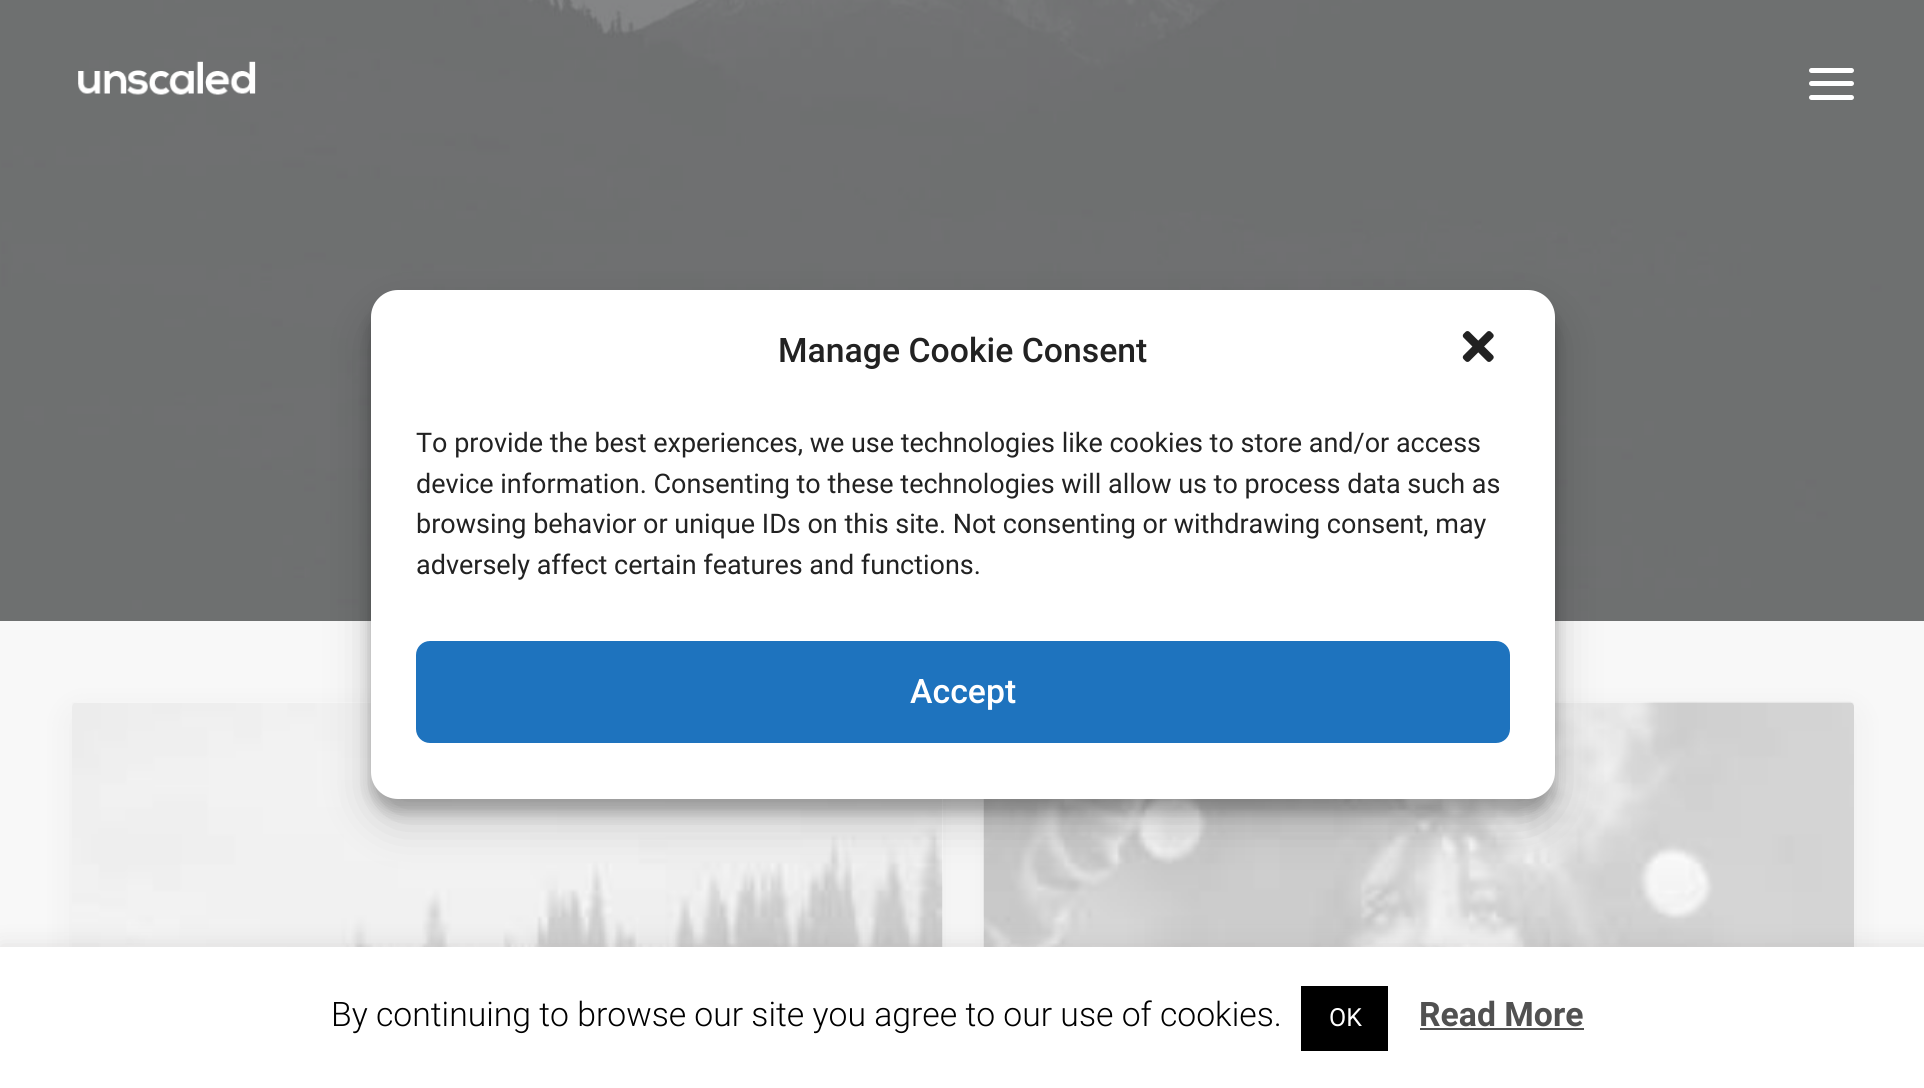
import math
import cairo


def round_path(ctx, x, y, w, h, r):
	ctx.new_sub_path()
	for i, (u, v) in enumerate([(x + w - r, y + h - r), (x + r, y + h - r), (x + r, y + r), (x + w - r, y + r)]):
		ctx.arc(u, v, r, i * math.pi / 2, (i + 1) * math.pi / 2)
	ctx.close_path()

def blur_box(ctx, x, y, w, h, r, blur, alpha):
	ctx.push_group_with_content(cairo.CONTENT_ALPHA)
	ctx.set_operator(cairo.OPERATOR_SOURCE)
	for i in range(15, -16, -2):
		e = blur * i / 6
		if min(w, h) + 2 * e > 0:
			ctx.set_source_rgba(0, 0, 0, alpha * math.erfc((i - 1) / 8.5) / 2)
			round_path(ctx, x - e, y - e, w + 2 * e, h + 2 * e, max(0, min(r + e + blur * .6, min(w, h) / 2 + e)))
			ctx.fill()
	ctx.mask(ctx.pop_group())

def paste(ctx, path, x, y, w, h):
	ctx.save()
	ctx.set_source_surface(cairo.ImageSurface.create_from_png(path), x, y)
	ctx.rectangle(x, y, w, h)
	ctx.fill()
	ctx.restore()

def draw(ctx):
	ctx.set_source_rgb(1, 1, 1)
	ctx.paint()
	paste(ctx, 'media/1.png', 0, 0, 1924, 621)
	ctx.set_source_rgb(0.969, 0.969, 0.969)
	ctx.rectangle(0, 621, 1924, 326)
	ctx.fill()
	ctx.set_source_rgb(0, 0, 0)
	blur_box(ctx, 72, 713, 871, 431, 5, 17, 0.05)
	ctx.set_source_rgb(1, 1, 1)
	round_path(ctx, 72, 702, 871, 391, 5)
	ctx.fill()
	paste(ctx, 'media/2.png', 72, 702, 871, 245)
	ctx.set_source_rgb(0, 0, 0)
	blur_box(ctx, 983, 713, 871, 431, 5, 17, 0.05)
	ctx.set_source_rgb(1, 1, 1)
	round_path(ctx, 983, 702, 871, 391, 5)
	ctx.fill()
	paste(ctx, 'media/3.png', 983, 701, 871, 246)
	paste(ctx, 'media/4.png', 78, 61, 178, 34)
	round_path(ctx, 1809, 81, 45, 5, 2.5)
	ctx.fill()
	round_path(ctx, 1809, 68, 45, 5, 2.5)
	ctx.fill()
	round_path(ctx, 1809, 95, 45, 5, 2.5)
	ctx.fill()
	ctx.set_source_rgb(0, 0, 0)
	blur_box(ctx, 371, 304, 1184, 508, 27, 7, 0.23)
	blur_box(ctx, 371, 313, 1184, 508, 27, 22.5, 0.19)
	ctx.set_source_rgb(1, 1, 1)
	round_path(ctx, 371, 290, 1184, 509, 27)
	ctx.fill()
	ctx.select_font_face('Roboto Medium')
	ctx.set_font_size(33.75)
	ctx.set_source_rgb(0.133, 0.133, 0.133)
	ctx.move_to(778, 362)
	ctx.show_text('Manage Cookie Consent')
	paste(ctx, 'media/5.png', 1462, 331, 32, 31)
	ctx.select_font_face('Roboto')
	ctx.set_font_size(27)
	for x, y, s in [
		(416, 452, 'To provide the best experiences, we use technologies like cookies to store and/or access'),
		(416, 493, 'device information. Consenting to these technologies will allow us to process data such as'),
		(416, 533, 'browsing behavior or unique IDs on this site. Not consenting or withdrawing consent, may'),
		(416, 574, 'adversely affect certain features and functions.'),
	]:
		ctx.move_to(x, y)
		ctx.show_text(s)
	ctx.set_source_rgb(0.118, 0.451, 0.745)
	round_path(ctx, 417, 642, 1092, 100, 13)
	ctx.fill_preserve()
	ctx.stroke()
	ctx.select_font_face('Roboto Medium')
	ctx.set_font_size(33.75)
	ctx.set_source_rgb(1, 1, 1)
	ctx.move_to(910, 703)
	ctx.show_text('Accept')
	ctx.set_source_rgb(0.675, 0.671, 0.671)
	blur_box(ctx, 0, 945, 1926, 142, 0, 11, 0.3)
	ctx.set_source_rgb(1, 1, 1)
	ctx.rectangle(0, 947, 1924, 141)
	ctx.fill()
	ctx.select_font_face('Roboto Light')
	ctx.set_source_rgb(0, 0, 0)
	ctx.move_to(331, 1026)
	ctx.show_text('By continuing to browse our site you agree to our use of cookies.')
	ctx.rectangle(1301, 986, 87, 65)
	ctx.fill()
	ctx.select_font_face('Roboto')
	ctx.set_font_size(25)
	ctx.set_source_rgb(1, 1, 1)
	ctx.move_to(1329, 1026)
	ctx.show_text('OK')
	ctx.select_font_face('Roboto', cairo.FONT_SLANT_NORMAL, cairo.FONT_WEIGHT_BOLD)
	ctx.set_font_size(33.75)
	ctx.set_source_rgb(0.318, 0.318, 0.318)
	ctx.move_to(1419, 1026)
	ctx.show_text('Read More')
	ctx.rectangle(1420, 1028, 164, 2)
	ctx.fill()


surface = cairo.ImageSurface(cairo.FORMAT_RGB24, 1924, 1088)
ctx = cairo.Context(surface)
options = cairo.FontOptions()
options.set_hint_metrics(cairo.HINT_METRICS_OFF)
options.set_hint_style(cairo.HINT_STYLE_NONE)
ctx.set_font_options(options)
ctx.set_miter_limit(4)
draw(ctx)
surface.write_to_png('image.png')
